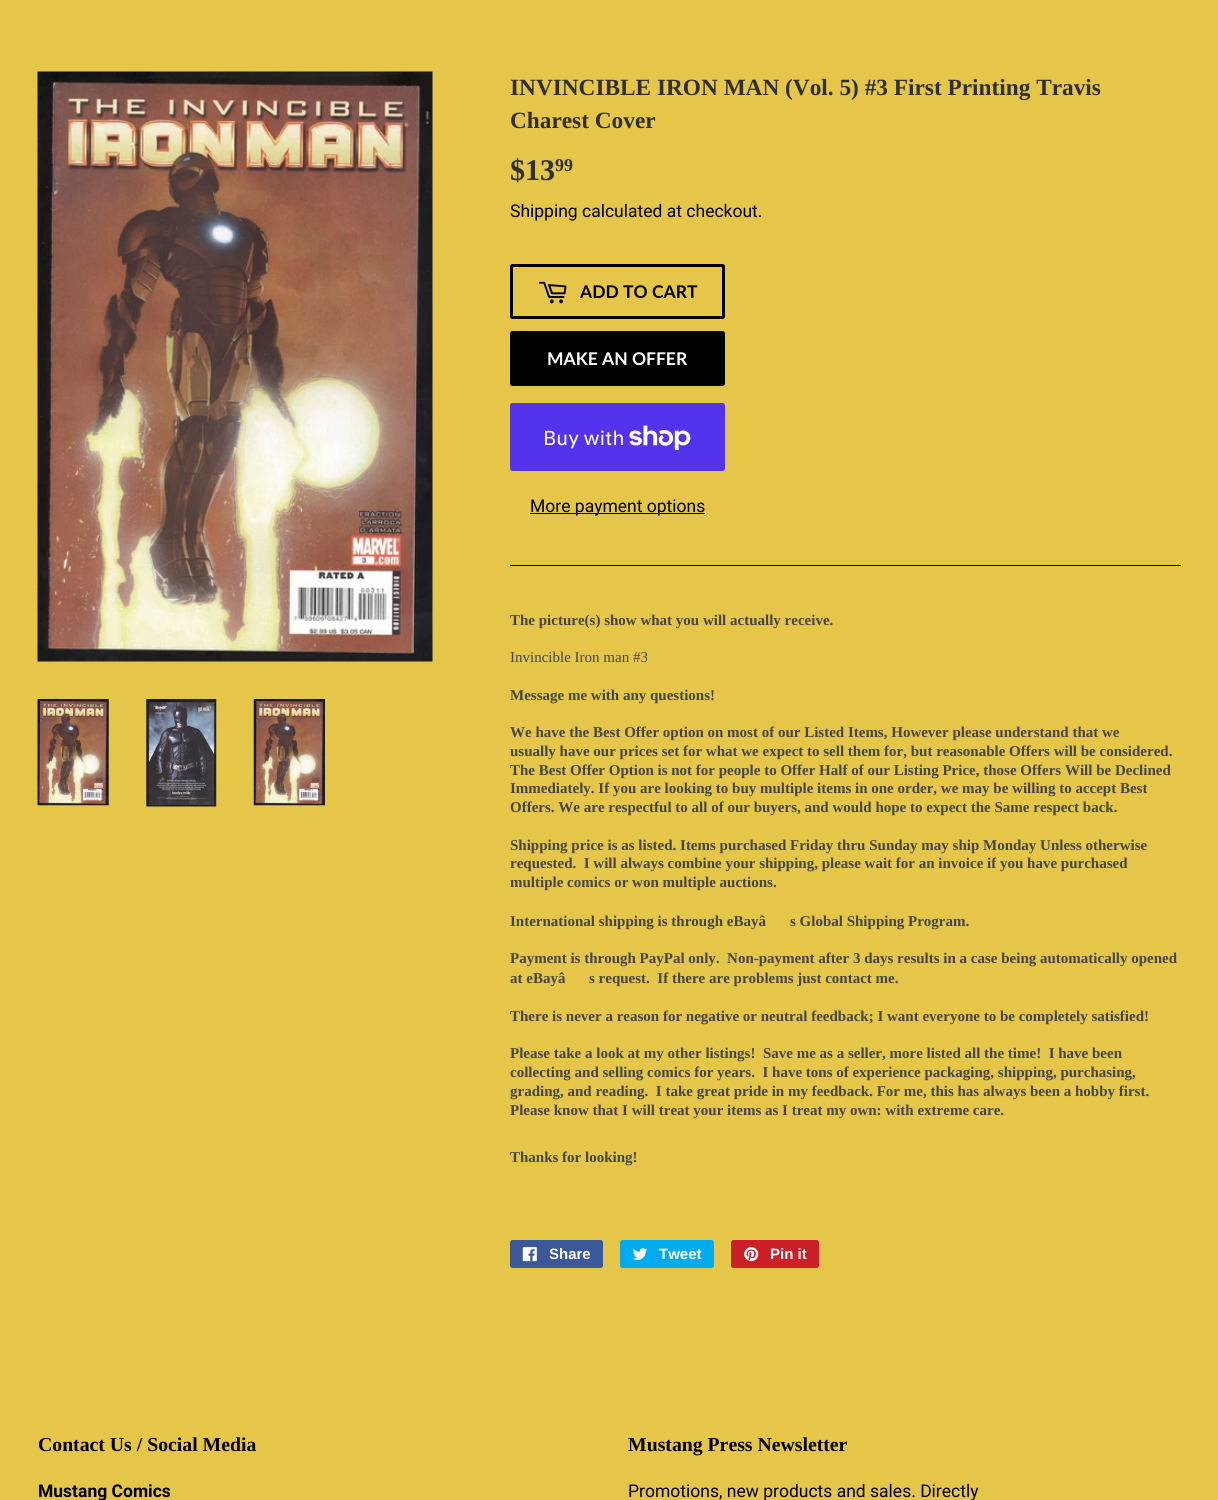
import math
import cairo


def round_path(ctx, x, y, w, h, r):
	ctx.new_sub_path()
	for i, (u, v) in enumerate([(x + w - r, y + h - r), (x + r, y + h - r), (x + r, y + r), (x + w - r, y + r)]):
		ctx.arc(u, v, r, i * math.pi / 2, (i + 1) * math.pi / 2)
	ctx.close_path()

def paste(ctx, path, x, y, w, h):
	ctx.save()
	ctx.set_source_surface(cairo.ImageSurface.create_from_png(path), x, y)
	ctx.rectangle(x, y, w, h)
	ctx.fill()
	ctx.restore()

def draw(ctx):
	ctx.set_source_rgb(0.898, 0.776, 0.286)
	ctx.paint()
	paste(ctx, 'media/1.png', 37, 71, 396, 591)
	ctx.select_font_face('Lato', cairo.FONT_SLANT_NORMAL, cairo.FONT_WEIGHT_BOLD)
	ctx.set_font_size(17.5)
	ctx.set_source_rgb(0.518, 0.373, 0.325)
	ctx.move_to(425, 124)
	ctx.show_text('!')
	paste(ctx, 'media/2.png', 37, 699, 72, 107)
	paste(ctx, 'media/3.png', 146, 699, 71, 108)
	paste(ctx, 'media/4.png', 253, 699, 72, 107)
	ctx.select_font_face('Liberation Serif', cairo.FONT_SLANT_NORMAL, cairo.FONT_WEIGHT_BOLD)
	ctx.set_font_size(23.3)
	ctx.set_source_rgb(0.184, 0.184, 0.184)
	ctx.move_to(510, 95)
	ctx.show_text('INVINCIBLE IRON MAN (Vol. 5) #3 First Printing Travis')
	ctx.move_to(510, 128)
	ctx.show_text('Charest Cover')
	ctx.set_font_size(30)
	ctx.move_to(510, 180)
	ctx.show_text('$13')
	ctx.set_font_size(18)
	ctx.move_to(555, 171)
	ctx.show_text('99')
	ctx.select_font_face('Roboto')
	ctx.set_font_size(17.5)
	ctx.set_source_rgb(0, 0, 0)
	ctx.move_to(510, 217)
	ctx.show_text('Shipping calculated at checkout.')
	round_path(ctx, 511.5, 265.5, 212, 52, 1)
	ctx.set_line_width(3)
	ctx.stroke()
	paste(ctx, 'media/5.png', 539, 281, 28, 23)
	ctx.select_font_face('Lato', cairo.FONT_SLANT_NORMAL, cairo.FONT_WEIGHT_BOLD)
	ctx.move_to(580, 298)
	ctx.show_text('ADD TO CART')
	round_path(ctx, 511.5, 332.5, 212, 52, 1)
	ctx.fill_preserve()
	ctx.stroke()
	ctx.set_source_rgb(1, 1, 1)
	ctx.move_to(547, 365)
	ctx.show_text('MAKE AN OFFER')
	ctx.set_source_rgb(0.329, 0.2, 0.922)
	round_path(ctx, 510, 403, 215, 68, 2.5)
	ctx.fill()
	ctx.select_font_face('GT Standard')
	ctx.set_font_size(20)
	ctx.set_source_rgb(1, 1, 1)
	ctx.move_to(543, 445)
	ctx.show_text('Buy with')
	paste(ctx, 'media/6.png', 629, 425, 62, 25)
	ctx.set_source_rgb(0, 0, 0)
	ctx.rectangle(530, 513, 175, 1)
	ctx.fill()
	ctx.select_font_face('Roboto')
	ctx.set_font_size(17.5)
	ctx.move_to(530, 512)
	ctx.show_text('More payment options')
	ctx.rectangle(510, 565, 671, 1)
	ctx.fill()
	ctx.select_font_face('Liberation Serif', cairo.FONT_SLANT_NORMAL, cairo.FONT_WEIGHT_BOLD)
	ctx.set_font_size(15)
	ctx.set_source_rgb(0.271, 0.271, 0.271)
	ctx.move_to(510, 625)
	ctx.show_text('The picture(s) show what you will actually receive.')
	ctx.select_font_face('Liberation Serif')
	ctx.move_to(510, 662)
	ctx.show_text('Invincible Iron man #3')
	ctx.select_font_face('Liberation Serif', cairo.FONT_SLANT_NORMAL, cairo.FONT_WEIGHT_BOLD)
	for x, y, s in [
		(510, 700, 'Message me with any questions!'),
		(510, 737, 'We have the Best Offer option on most of our Listed Items, However please understand that we'),
		(510, 756, 'usually have our prices set for what we expect to sell them for, but reasonable Offers will be considered.'),
		(510, 775, 'The Best Offer Option is not for people to Offer Half of our Listing Price, those Offers Will be Declined'),
		(510, 793, 'Immediately. If you are looking to buy multiple items in one order, we may be willing to accept Best'),
		(510, 812, 'Offers. We are respectful to all of our buyers, and would hope to expect the Same respect back.'),
		(510, 850, 'Shipping price is as listed. Items purchased Friday thru Sunday may ship Monday Unless otherwise'),
		(510, 868, 'requested.  I will always combine your shipping, please wait for an invoice if you have purchased'),
		(510, 887, 'multiple comics or won multiple auctions.'),
		(510, 926, 'International shipping is through eBayâ'),
		(790, 926, 's Global Shipping Program.'),
		(510, 963, 'Payment is through PayPal only.  Non-payment after 3 days results in a case being automatically opened'),
		(510, 983, 'at eBayâ'),
		(589, 983, 's request.  If there are problems just contact me.'),
		(510, 1021, 'There is never a reason for negative or neutral feedback; I want everyone to be completely satisfied!'),
		(510, 1058, 'Please take a look at my other listings!  Save me as a seller, more listed all the time!  I have been'),
		(510, 1077, 'collecting and selling comics for years.  I have tons of experience packaging, shipping, purchasing,'),
		(510, 1096, 'grading, and reading.  I take great pride in my feedback. For me, this has always been a hobby first.'),
		(510, 1115, 'Please know that I will treat your items as I treat my own: with extreme care.'),
		(510, 1162, 'Thanks for looking!'),
	]:
		ctx.move_to(x, y)
		ctx.show_text(s)
	ctx.set_source_rgb(0.231, 0.349, 0.596)
	round_path(ctx, 510, 1240, 93, 28, 2.5)
	ctx.fill()
	paste(ctx, 'media/7.png', 522, 1247, 15, 15)
	ctx.select_font_face('Liberation Sans', cairo.FONT_SLANT_NORMAL, cairo.FONT_WEIGHT_BOLD)
	ctx.set_source_rgb(1, 1, 1)
	ctx.move_to(549, 1259)
	ctx.show_text('Share')
	ctx.set_source_rgb(0, 0.675, 0.929)
	round_path(ctx, 620, 1240, 94, 28, 2.5)
	ctx.fill()
	paste(ctx, 'media/8.png', 633, 1248, 14, 12)
	ctx.set_source_rgb(1, 1, 1)
	ctx.move_to(659, 1259)
	ctx.show_text('Tweet')
	ctx.set_source_rgb(0.796, 0.125, 0.153)
	round_path(ctx, 731, 1240, 88, 28, 2.5)
	ctx.fill()
	paste(ctx, 'media/9.png', 744, 1247, 15, 15)
	ctx.set_source_rgb(1, 1, 1)
	ctx.move_to(770, 1259)
	ctx.show_text('Pin it')
	ctx.select_font_face('Liberation Serif', cairo.FONT_SLANT_NORMAL, cairo.FONT_WEIGHT_BOLD)
	ctx.set_font_size(19.75)
	ctx.set_source_rgb(0, 0, 0)
	ctx.move_to(38, 1451)
	ctx.show_text('Contact Us / Social Media')
	ctx.select_font_face('Roboto', cairo.FONT_SLANT_NORMAL, cairo.FONT_WEIGHT_BOLD)
	ctx.set_font_size(17.5)
	ctx.move_to(38, 1497)
	ctx.show_text('Mustang Comics')
	ctx.select_font_face('Liberation Serif', cairo.FONT_SLANT_NORMAL, cairo.FONT_WEIGHT_BOLD)
	ctx.set_font_size(19.75)
	ctx.move_to(628, 1451)
	ctx.show_text('Mustang Press Newsletter')
	ctx.select_font_face('Roboto')
	ctx.set_font_size(17.5)
	ctx.move_to(628, 1497)
	ctx.show_text('Promotions, new products and sales. Directly')


surface = cairo.ImageSurface(cairo.FORMAT_RGB24, 1218, 1500)
ctx = cairo.Context(surface)
options = cairo.FontOptions()
options.set_hint_metrics(cairo.HINT_METRICS_OFF)
options.set_hint_style(cairo.HINT_STYLE_NONE)
ctx.set_font_options(options)
ctx.set_miter_limit(4)
draw(ctx)
surface.write_to_png('image.png')
